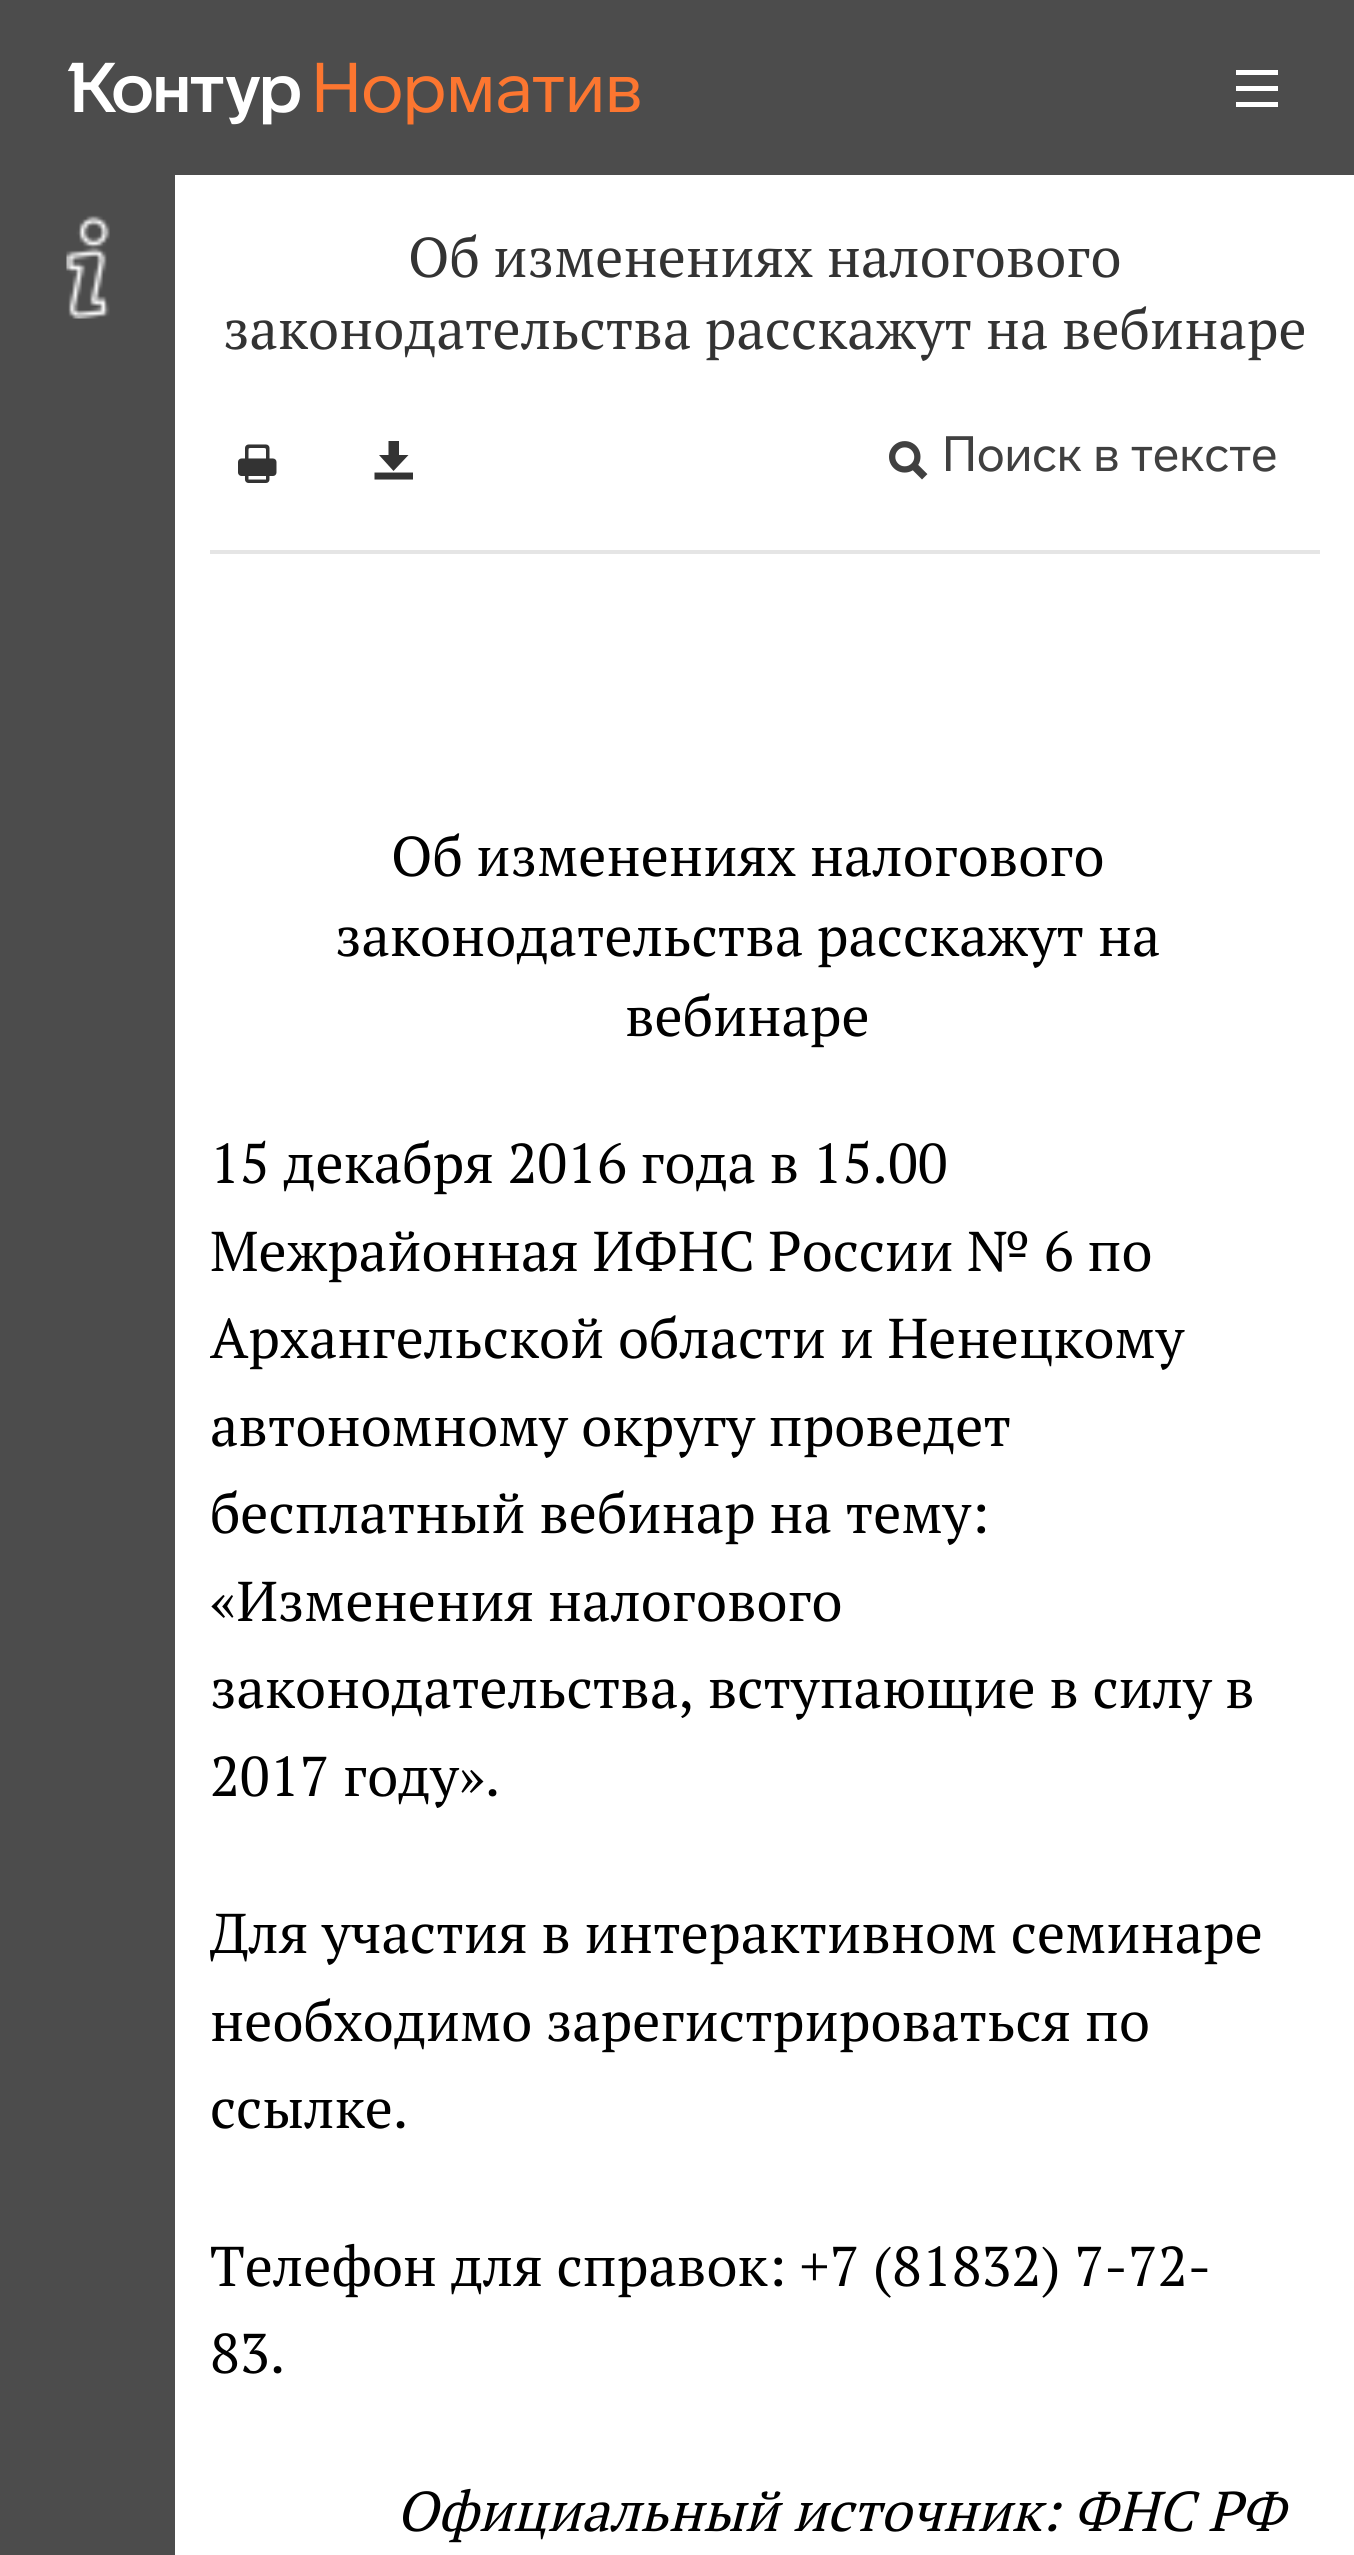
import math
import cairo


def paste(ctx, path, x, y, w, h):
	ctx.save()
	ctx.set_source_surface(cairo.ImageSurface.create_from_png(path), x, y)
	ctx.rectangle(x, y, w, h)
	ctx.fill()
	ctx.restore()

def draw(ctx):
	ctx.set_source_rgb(1, 1, 1)
	ctx.paint()
	ctx.set_source_rgb(0.298, 0.298, 0.298)
	ctx.rectangle(0, 0, 1354, 175)
	ctx.fill()
	paste(ctx, 'media/1.png', 67, 62, 233, 63)
	paste(ctx, 'media/2.png', 316, 62, 324, 63)
	ctx.set_source_rgb(1, 1, 1)
	ctx.set_fill_rule(cairo.FILL_RULE_EVEN_ODD)
	ctx.new_path()
	ctx.move_to(1236, 102)
	ctx.line_to(1278, 102)
	ctx.line_to(1278, 107)
	ctx.line_to(1236, 107)
	ctx.close_path()
	ctx.move_to(1236, 86)
	ctx.line_to(1278, 86)
	ctx.line_to(1278, 91)
	ctx.line_to(1236, 91)
	ctx.close_path()
	ctx.move_to(1236, 70)
	ctx.line_to(1278, 70)
	ctx.line_to(1278, 75)
	ctx.line_to(1236, 75)
	ctx.close_path()
	ctx.fill()
	ctx.set_source_rgb(0.298, 0.298, 0.298)
	ctx.rectangle(0, 175, 175, 2380)
	ctx.fill()
	paste(ctx, 'media/3.png', 66, 215, 44, 104)
	ctx.select_font_face('PT Serif')
	ctx.set_font_size(56)
	ctx.set_source_rgb(0.2, 0.2, 0.2)
	ctx.move_to(408, 277)
	ctx.show_text('Об изменениях налогового')
	ctx.move_to(223, 349)
	ctx.show_text('законодательства расскажут на вебинаре')
	paste(ctx, 'media/4.png', 238, 444, 39, 39)
	ctx.set_fill_rule(cairo.FILL_RULE_WINDING)
	ctx.new_path()
	ctx.move_to(413, 479.5)
	ctx.line_to(374.5, 479.5)
	ctx.line_to(374.5, 472.5)
	ctx.line_to(413, 472.5)
	ctx.close_path()
	ctx.move_to(388.5, 455)
	ctx.line_to(388.5, 441)
	ctx.line_to(399, 441)
	ctx.line_to(399, 455)
	ctx.line_to(408.5, 455)
	ctx.line_to(393.5, 471)
	ctx.line_to(379, 455)
	ctx.close_path()
	ctx.fill()
	paste(ctx, 'media/5.png', 889, 441, 39, 39)
	ctx.select_font_face('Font')
	ctx.set_font_size(49)
	ctx.set_source_rgb(0.251, 0.251, 0.251)
	ctx.move_to(942, 471)
	ctx.show_text('Поиск в тексте')
	ctx.set_source_rgb(0.898, 0.898, 0.898)
	ctx.rectangle(210, 550, 1110, 4)
	ctx.fill()
	ctx.select_font_face('PT Serif')
	ctx.set_font_size(56)
	ctx.set_source_rgb(0, 0, 0)
	for x, y, s in [
		(391, 876, 'Об изменениях налогового'),
		(335, 956, 'законодательства расскажут на'),
		(625, 1036, 'вебинаре'),
		(210, 1183, '15 декабря 2016 года в 15.00'),
		(210, 1271, 'Межрайонная ИФНС России № 6 по'),
		(210, 1358, 'Архангельской области и Ненецкому'),
		(210, 1446, 'автономному округу проведет'),
		(210, 1533, 'бесплатный вебинар на тему:'),
		(210, 1621, '«Изменения налогового'),
		(210, 1708, 'законодательства, вступающие в силу в'),
		(210, 1796, '2017 году».'),
		(210, 1953, 'Для участия в интерактивном семинаре'),
		(210, 2041, 'необходимо зарегистрироваться по'),
		(210, 2128, 'ссылке.'),
		(210, 2286, 'Телефон для справок: +7 (81832) 7-72-'),
		(210, 2373, '83.'),
	]:
		ctx.move_to(x, y)
		ctx.show_text(s)
	ctx.select_font_face('PT Serif', cairo.FONT_SLANT_ITALIC)
	ctx.move_to(396, 2531)
	ctx.show_text('Официальный источник: ФНС РФ')


surface = cairo.ImageSurface(cairo.FORMAT_RGB24, 1354, 2555)
ctx = cairo.Context(surface)
options = cairo.FontOptions()
options.set_hint_metrics(cairo.HINT_METRICS_OFF)
options.set_hint_style(cairo.HINT_STYLE_NONE)
ctx.set_font_options(options)
ctx.set_miter_limit(4)
draw(ctx)
surface.write_to_png('image.png')
